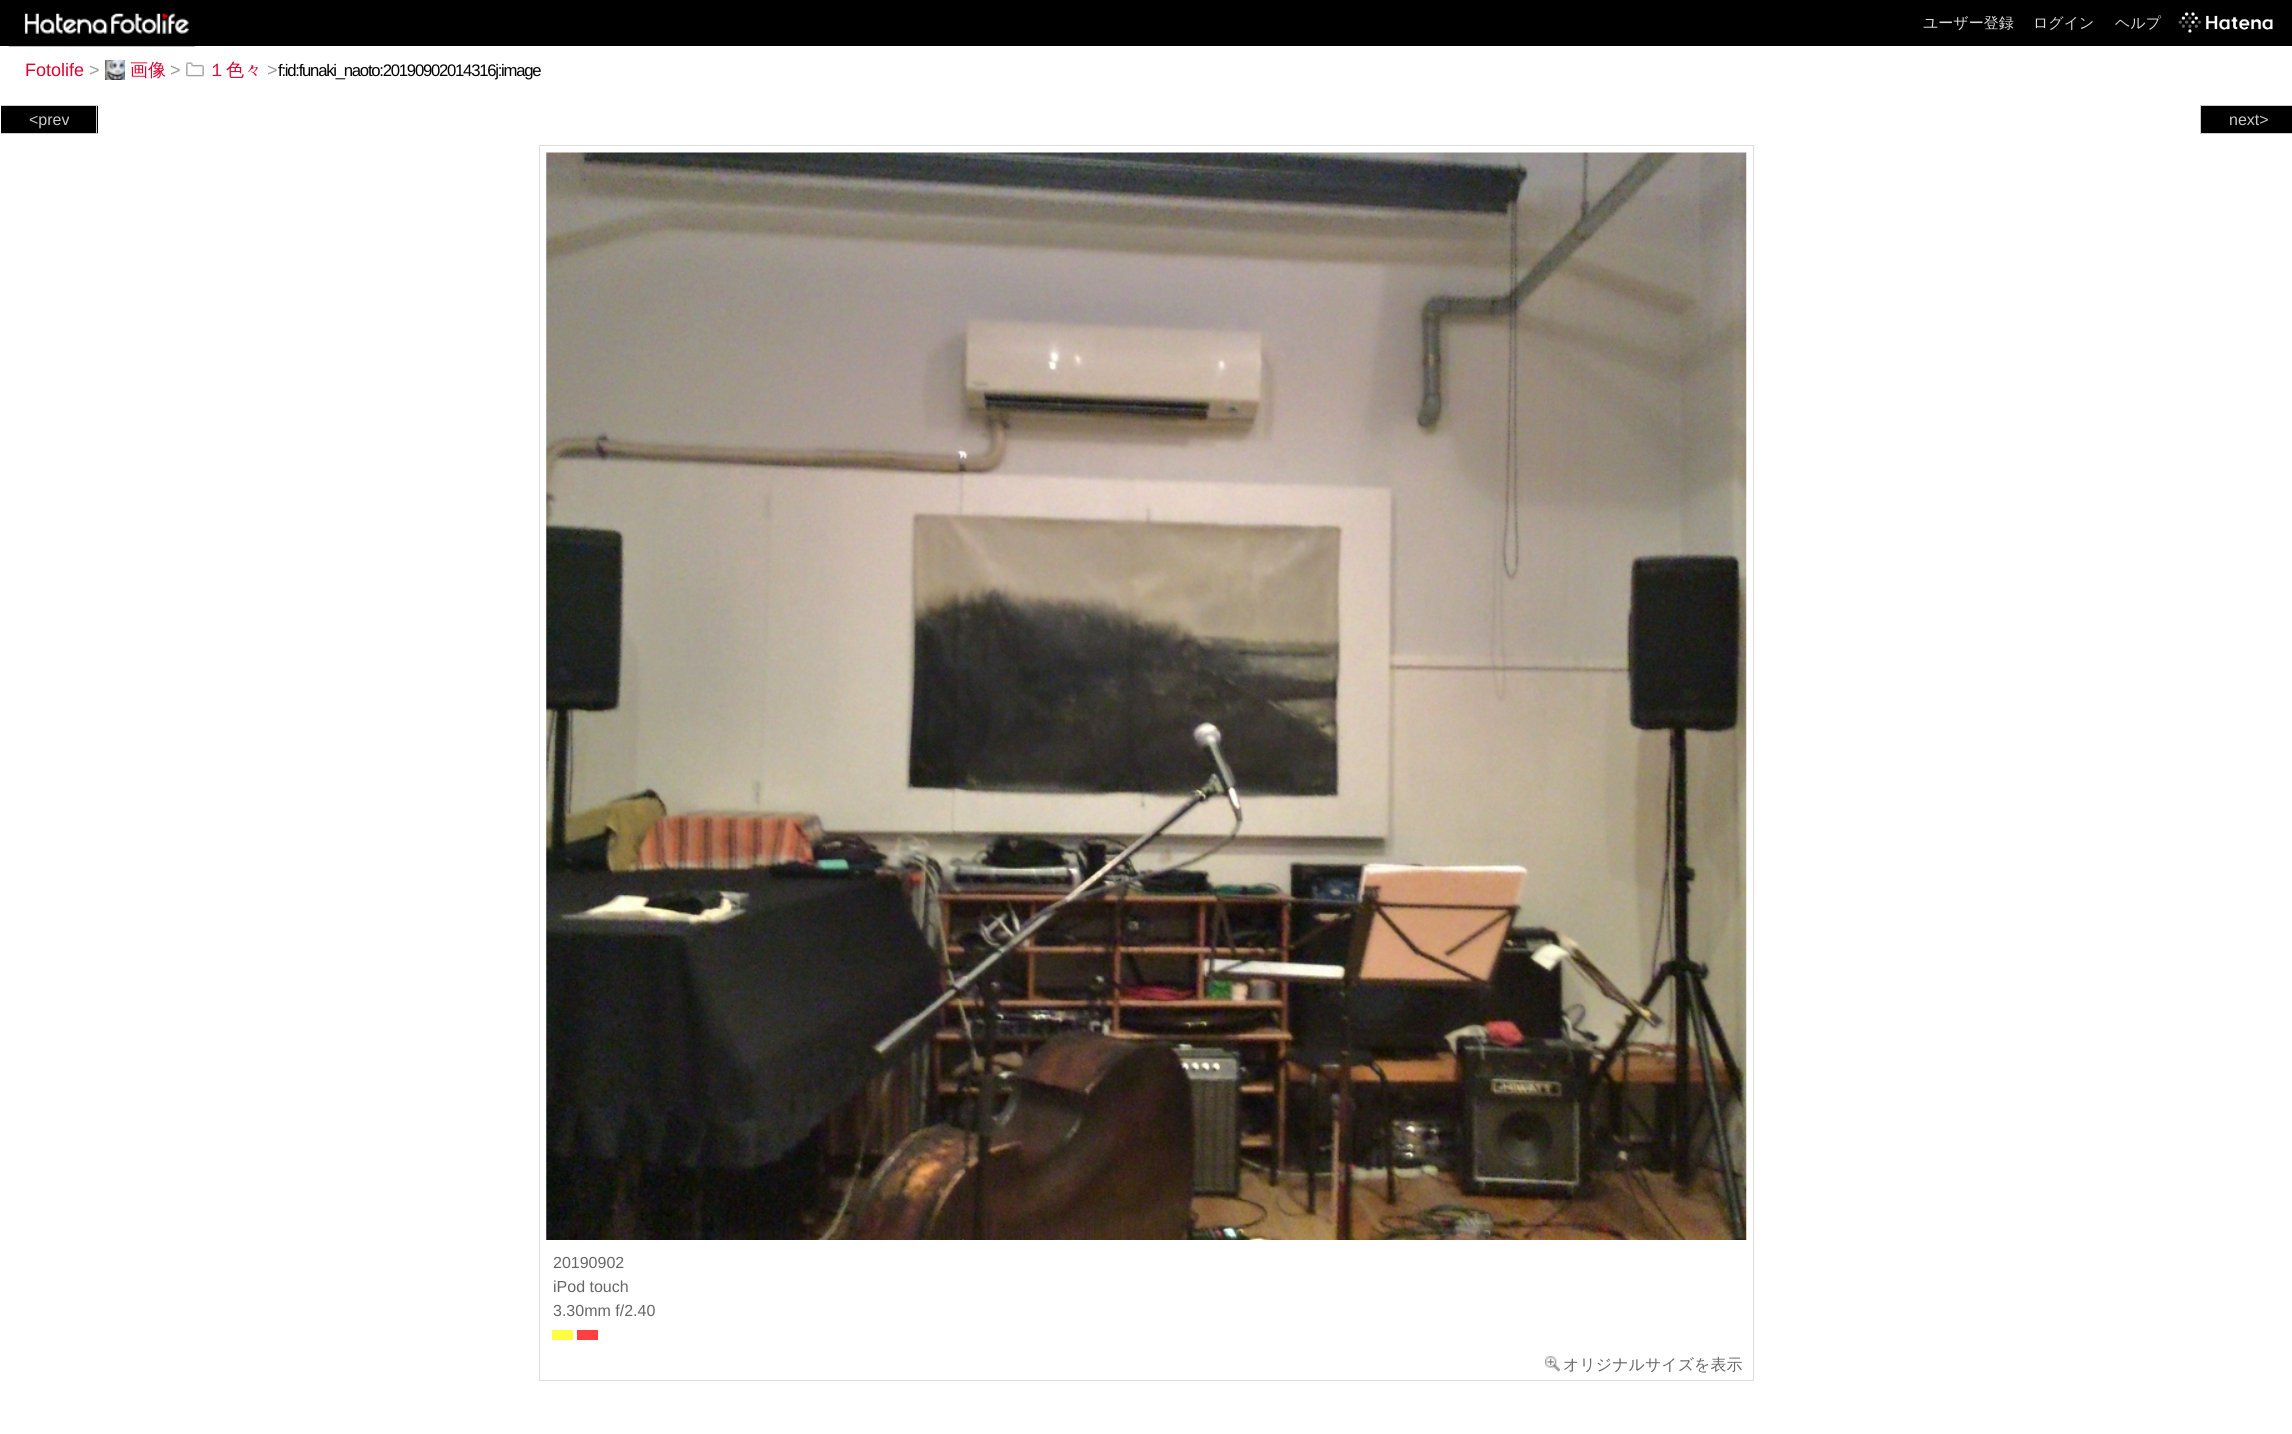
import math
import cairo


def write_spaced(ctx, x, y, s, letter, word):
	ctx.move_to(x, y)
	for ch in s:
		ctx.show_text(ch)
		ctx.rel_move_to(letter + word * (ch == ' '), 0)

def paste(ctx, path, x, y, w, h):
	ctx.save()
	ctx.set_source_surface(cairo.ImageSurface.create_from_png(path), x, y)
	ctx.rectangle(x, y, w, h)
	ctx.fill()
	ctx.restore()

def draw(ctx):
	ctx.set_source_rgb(1, 1, 1)
	ctx.paint()
	ctx.set_source_rgb(0, 0, 0)
	ctx.rectangle(0, 0, 2292, 46)
	ctx.fill()
	paste(ctx, 'media/1.png', 8, 13, 104, 34)
	paste(ctx, 'media/2.png', 111, 13, 84, 34)
	ctx.select_font_face('WenQuanYi Zen Hei Medium')
	ctx.set_font_size(15)
	ctx.set_source_rgb(0.867, 0.867, 0.867)
	for x, y, s in [
		(1923, 28, 'ユーザー登録'),
		(2033, 28, 'ログイン'),
		(2115, 28, 'ヘルプ'),
	]:
		ctx.move_to(x, y)
		ctx.show_text(s)
	paste(ctx, 'media/3.png', 2178, 12, 95, 21)
	ctx.select_font_face('Liberation Sans')
	ctx.set_font_size(18)
	ctx.set_source_rgb(0.871, 0, 0.184)
	ctx.move_to(25, 76)
	ctx.show_text('Fotolife')
	ctx.set_source_rgb(0.6, 0.6, 0.6)
	ctx.move_to(89, 76)
	ctx.show_text('>')
	paste(ctx, 'media/4.png', 105, 60, 20, 20)
	ctx.select_font_face('WenQuanYi Zen Hei Medium')
	ctx.set_source_rgb(0.871, 0, 0.184)
	ctx.move_to(130, 76)
	ctx.show_text('画像')
	ctx.select_font_face('Liberation Sans')
	ctx.set_source_rgb(0.6, 0.6, 0.6)
	ctx.move_to(170, 76)
	ctx.show_text('>')
	paste(ctx, 'media/5.png', 186, 62, 18, 15)
	ctx.select_font_face('WenQuanYi Zen Hei Medium')
	ctx.set_source_rgb(0.871, 0, 0.184)
	ctx.move_to(208, 76)
	ctx.show_text('１色々')
	ctx.select_font_face('Liberation Sans')
	ctx.set_source_rgb(0.6, 0.6, 0.6)
	ctx.move_to(267, 76)
	ctx.show_text('>')
	ctx.set_font_size(16.7)
	ctx.set_source_rgb(0, 0, 0)
	write_spaced(ctx, 278, 76, 'f:id:funaki_naoto:20190902014316j:image', -1.25, 0)
	ctx.rectangle(1, 106, 97, 27)
	ctx.fill()
	ctx.set_source_rgb(0.8, 0.8, 0.8)
	ctx.rectangle(1, 105, 97, 1)
	ctx.rectangle(96, 105, 1, 29)
	ctx.rectangle(1, 133, 97, 1)
	ctx.fill()
	ctx.set_font_size(16)
	ctx.move_to(29, 125)
	ctx.show_text('<prev')
	ctx.set_source_rgb(0, 0, 0)
	ctx.rectangle(2201, 106, 91, 27)
	ctx.fill()
	ctx.set_source_rgb(0.8, 0.8, 0.8)
	ctx.rectangle(2200, 105, 92, 1)
	ctx.rectangle(2200, 133, 92, 1)
	ctx.rectangle(2200, 105, 1, 29)
	ctx.fill()
	ctx.move_to(2229, 125)
	ctx.show_text('next>')
	ctx.rectangle(539.5, 145.5, 1214, 1235)
	ctx.set_source_rgb(0.871, 0.871, 0.871)
	ctx.set_line_width(1)
	ctx.stroke()
	paste(ctx, 'media/6.png', 546, 152, 1201, 1088)
	ctx.set_source_rgb(0.4, 0.4, 0.4)
	for x, y, s in [
		(553, 1268, '20190902'),
		(553, 1292, 'iPod touch'),
		(553, 1316, '3.30mm f/2.40'),
	]:
		ctx.move_to(x, y)
		ctx.show_text(s)
	ctx.set_source_rgb(1, 1, 0.251)
	ctx.rectangle(552, 1330, 21, 10)
	ctx.fill()
	ctx.set_source_rgb(1, 0.251, 0.251)
	ctx.rectangle(577, 1330, 21, 10)
	ctx.fill()
	paste(ctx, 'media/7.png', 1545, 1356, 15, 16)
	ctx.select_font_face('WenQuanYi Zen Hei Medium')
	ctx.set_source_rgb(0.4, 0.4, 0.4)
	ctx.move_to(1563, 1370)
	ctx.show_text('オリジナルサイズを表示')


surface = cairo.ImageSurface(cairo.FORMAT_RGB24, 2292, 1434)
ctx = cairo.Context(surface)
options = cairo.FontOptions()
options.set_hint_metrics(cairo.HINT_METRICS_OFF)
options.set_hint_style(cairo.HINT_STYLE_NONE)
ctx.set_font_options(options)
ctx.set_miter_limit(4)
draw(ctx)
surface.write_to_png('image.png')
